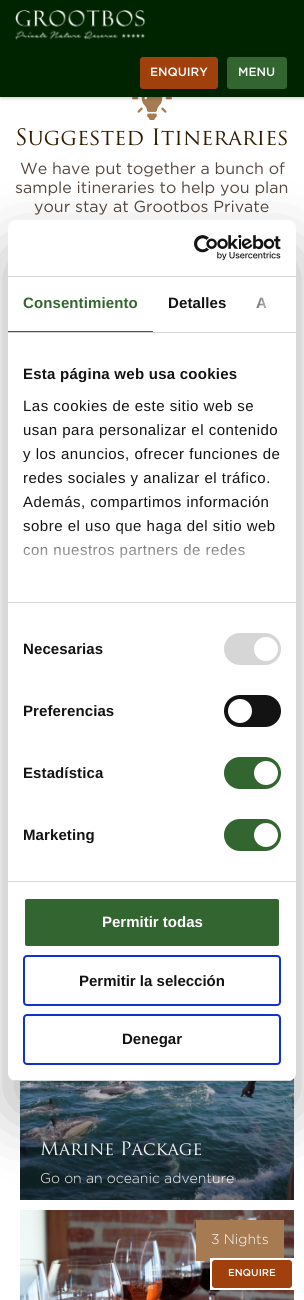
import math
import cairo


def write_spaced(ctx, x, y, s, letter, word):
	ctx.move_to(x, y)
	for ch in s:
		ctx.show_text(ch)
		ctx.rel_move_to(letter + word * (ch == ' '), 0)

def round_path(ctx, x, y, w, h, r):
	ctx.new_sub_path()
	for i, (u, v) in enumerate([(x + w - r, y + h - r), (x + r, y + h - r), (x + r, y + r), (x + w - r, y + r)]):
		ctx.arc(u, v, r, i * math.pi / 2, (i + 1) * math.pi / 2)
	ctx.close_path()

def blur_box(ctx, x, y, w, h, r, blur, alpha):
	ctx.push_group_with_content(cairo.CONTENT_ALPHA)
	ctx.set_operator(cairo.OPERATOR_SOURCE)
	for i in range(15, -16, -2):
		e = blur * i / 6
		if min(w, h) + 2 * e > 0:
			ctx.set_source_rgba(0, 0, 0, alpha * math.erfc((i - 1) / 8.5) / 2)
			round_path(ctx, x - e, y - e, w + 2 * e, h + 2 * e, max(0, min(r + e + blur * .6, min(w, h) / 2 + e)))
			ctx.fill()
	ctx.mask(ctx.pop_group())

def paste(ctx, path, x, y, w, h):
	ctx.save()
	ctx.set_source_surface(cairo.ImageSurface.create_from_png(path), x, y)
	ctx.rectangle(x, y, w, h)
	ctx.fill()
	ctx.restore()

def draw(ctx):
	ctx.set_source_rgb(1, 1, 1)
	ctx.paint()
	paste(ctx, 'media/2.png', 132, 97, 40, 23)
	ctx.set_source_rgb(0, 0, 0)
	blur_box(ctx, 1, 1, 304, 97, 0, 2, 0.23)
	ctx.set_source_rgb(0, 0.141, 0)
	ctx.rectangle(0, 0, 304, 97)
	ctx.fill()
	paste(ctx, 'media/1.png', 15, 10, 130, 30)
	ctx.set_source_rgb(0.627, 0.255, 0.051)
	round_path(ctx, 140.5, 57.5, 77, 31, 2.5)
	ctx.fill_preserve()
	ctx.set_line_width(1)
	ctx.stroke()
	ctx.select_font_face('Gotham Medium')
	ctx.set_font_size(12)
	ctx.set_source_rgb(1, 1, 1)
	ctx.move_to(150, 76)
	ctx.show_text('ENQUIRY')
	ctx.set_source_rgb(0.2, 0.396, 0.192)
	round_path(ctx, 227.5, 57.5, 59, 31, 2.5)
	ctx.fill_preserve()
	ctx.stroke()
	ctx.set_source_rgb(1, 1, 1)
	ctx.move_to(238, 76)
	ctx.show_text('MENU')
	paste(ctx, 'media/3.png', 17, 128, 270, 18)
	ctx.select_font_face('Gotham')
	ctx.set_font_size(16)
	ctx.set_source_rgb(0.325, 0.278, 0.255)
	for x, y, s in [
		(20, 174, 'We have put together a bunch of'),
		(15, 193, 'sample itineraries to help you plan'),
		(34, 212, 'your stay at Grootbos Private'),
	]:
		ctx.move_to(x, y)
		ctx.show_text(s)
	paste(ctx, 'media/5.png', 20, 1078, 274, 122)
	paste(ctx, 'media/4.png', 20, 1078, 274, 122)
	paste(ctx, 'media/6.png', 41, 1141, 161, 15)
	ctx.select_font_face('Gotham Light')
	ctx.set_font_size(14)
	ctx.set_source_rgb(1, 1, 1)
	ctx.move_to(40, 1183)
	ctx.show_text('Go on an oceanic adventure')
	paste(ctx, 'media/7.png', 20, 1210, 274, 90)
	ctx.set_source_rgb(0.651, 0.482, 0.322)
	ctx.rectangle(196, 1220, 88, 41)
	ctx.fill()
	ctx.set_source_rgb(1, 1, 1)
	ctx.move_to(211, 1244)
	ctx.show_text('3 Nights')
	ctx.set_source_rgb(0, 0, 0)
	blur_box(ctx, 8, 252, 288, 861, 8, 34, 0.3)
	ctx.set_source_rgb(1, 1, 1)
	round_path(ctx, 8, 220, 288, 861, 8)
	ctx.fill()
	ctx.set_source_rgb(0.839, 0.839, 0.839)
	ctx.rectangle(8, 276, 288, 1)
	ctx.fill()
	paste(ctx, 'media/8.png', 194, 235, 87, 26)
	ctx.rectangle(8, 332, 288, 1)
	ctx.fill()
	ctx.set_source_rgb(0.2, 0.396, 0.192)
	ctx.rectangle(8, 331, 145, 1)
	ctx.fill()
	ctx.select_font_face('Liberation Sans', cairo.FONT_SLANT_NORMAL, cairo.FONT_WEIGHT_BOLD)
	ctx.set_font_size(15)
	write_spaced(ctx, 23, 308, 'Consentimiento', 0.1, 0)
	ctx.set_source_rgb(0.078, 0.078, 0.078)
	write_spaced(ctx, 168, 308, 'Detalles', 0.1, 0)
	write_spaced(ctx, 256, 308, 'A', 0.1, 0)
	gradient = cairo.LinearGradient(296, 304, 244, 304)
	gradient.add_color_stop_rgba(0, 1, 1, 1, 1)
	gradient.add_color_stop_rgba(0.5, 1, 1, 1, 0.8)
	gradient.add_color_stop_rgba(1, 1, 1, 1, 0)
	ctx.set_source(gradient)
	ctx.rectangle(256, 297, 11, 11)
	ctx.fill()
	ctx.set_source_rgb(0.839, 0.839, 0.839)
	ctx.rectangle(8, 602, 288, 1)
	ctx.fill()
	ctx.set_source_rgb(0.078, 0.078, 0.078)
	write_spaced(ctx, 23, 379, 'Esta página web usa cookies', 0.25, 0)
	ctx.select_font_face('Liberation Sans')
	for x, y, s in [
		(23, 411, 'Las cookies de este sitio web se'),
		(23, 435, 'usan para personalizar el contenido'),
		(23, 459, 'y los anuncios, ofrecer funciones de'),
		(23, 483, 'redes sociales y analizar el tráfico.'),
		(23, 507, 'Además, compartimos información'),
		(23, 531, 'sobre el uso que haga del sitio web'),
		(23, 555, 'con nuestros partners de redes'),
	]:
		write_spaced(ctx, x, y, s, 0.5, 0)
	gradient = cairo.LinearGradient(146, 602, 146, 527)
	gradient.add_color_stop_rgba(0, 1, 1, 1, 1)
	gradient.add_color_stop_rgba(0.5, 1, 1, 1, 0.8)
	gradient.add_color_stop_rgba(1, 1, 1, 1, 0)
	ctx.set_source(gradient)
	ctx.rectangle(23, 528, 252, 31)
	ctx.fill()
	ctx.set_source_rgb(0.839, 0.839, 0.839)
	ctx.rectangle(8, 881, 288, 1)
	ctx.fill()
	ctx.select_font_face('Liberation Sans', cairo.FONT_SLANT_NORMAL, cairo.FONT_WEIGHT_BOLD)
	ctx.set_source_rgb(0.078, 0.078, 0.078)
	write_spaced(ctx, 23, 654, 'Necesarias', 0.1, 0)
	ctx.set_source_rgb(0.839, 0.839, 0.839)
	round_path(ctx, 224, 633, 57, 32, 16)
	ctx.fill()
	ctx.set_source_rgb(1, 1, 1)
	ctx.arc(266, 649, 12, 0, 2 * math.pi)
	ctx.fill()
	ctx.set_source_rgb(0.078, 0.078, 0.078)
	write_spaced(ctx, 23, 716, 'Preferencias', 0.1, 0)
	round_path(ctx, 224, 695, 57, 32, 16)
	ctx.fill()
	ctx.set_source_rgb(1, 1, 1)
	ctx.arc(240, 711, 12, 0, 2 * math.pi)
	ctx.fill()
	ctx.set_source_rgb(0.078, 0.078, 0.078)
	write_spaced(ctx, 23, 778, 'Estadística', 0.1, 0)
	ctx.set_source_rgb(0.2, 0.396, 0.192)
	round_path(ctx, 224, 757, 57, 32, 16)
	ctx.fill()
	ctx.set_source_rgb(1, 1, 1)
	ctx.arc(266, 773, 12, 0, 2 * math.pi)
	ctx.fill()
	ctx.set_source_rgb(0.078, 0.078, 0.078)
	write_spaced(ctx, 23, 840, 'Marketing', 0.1, 0)
	ctx.set_source_rgb(0.2, 0.396, 0.192)
	round_path(ctx, 224, 819, 57, 32, 16)
	ctx.fill()
	ctx.set_source_rgb(1, 1, 1)
	ctx.arc(266, 835, 12, 0, 2 * math.pi)
	ctx.fill()
	ctx.save()
	round_path(ctx, 8, 220, 288, 861, 8)
	ctx.clip()
	ctx.set_source_rgb(0.839, 0.839, 0.839)
	ctx.rectangle(8, 1080, 288, 1)
	ctx.fill()
	ctx.restore()
	ctx.set_source_rgb(0.2, 0.396, 0.192)
	round_path(ctx, 24, 898, 256, 49, 3)
	ctx.fill_preserve()
	ctx.set_source_rgb(1, 1, 1)
	ctx.set_line_width(2)
	ctx.stroke()
	ctx.move_to(102, 927)
	ctx.show_text('Permitir todas')
	round_path(ctx, 24, 956, 256, 49, 3)
	ctx.set_source_rgb(0.063, 0.196, 0.812)
	ctx.stroke()
	ctx.set_source_rgb(0.078, 0.078, 0.078)
	ctx.move_to(79, 986)
	ctx.show_text('Permitir la selección')
	round_path(ctx, 24, 1015, 256, 49, 3)
	ctx.set_source_rgb(0.063, 0.196, 0.812)
	ctx.stroke()
	ctx.set_source_rgb(0.078, 0.078, 0.078)
	ctx.move_to(122, 1044)
	ctx.show_text('Denegar')
	ctx.set_source_rgb(1, 1, 1)
	ctx.rectangle(210, 1258, 84, 32)
	ctx.fill()
	ctx.set_source_rgb(0.627, 0.255, 0.051)
	round_path(ctx, 212.5, 1260.5, 79, 27, 2.5)
	ctx.fill_preserve()
	ctx.set_line_width(1)
	ctx.stroke()
	ctx.select_font_face('Gotham Medium')
	ctx.set_font_size(10)
	ctx.set_source_rgb(1, 1, 1)
	ctx.move_to(228, 1276)
	ctx.show_text('ENQUIRE')


surface = cairo.ImageSurface(cairo.FORMAT_RGB24, 304, 1300)
ctx = cairo.Context(surface)
options = cairo.FontOptions()
options.set_hint_metrics(cairo.HINT_METRICS_OFF)
options.set_hint_style(cairo.HINT_STYLE_NONE)
ctx.set_font_options(options)
ctx.set_miter_limit(4)
draw(ctx)
surface.write_to_png('image.png')
